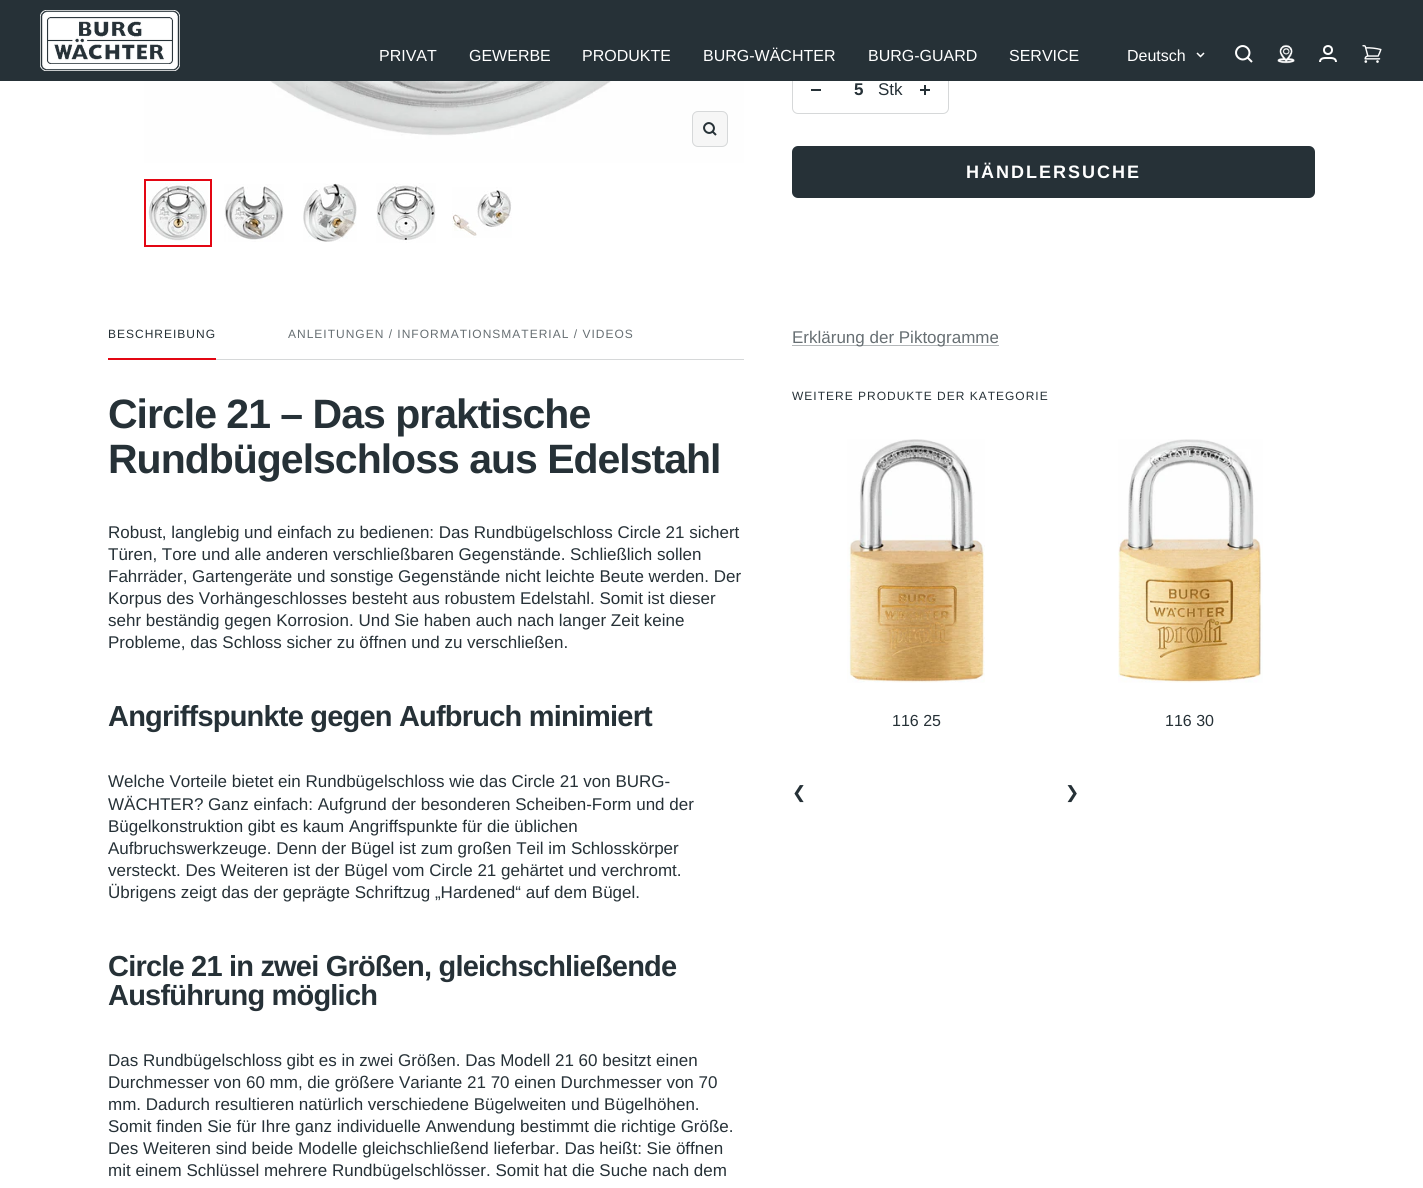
import math
import cairo


def write_spaced(ctx, x, y, s, letter, word):
	ctx.move_to(x, y)
	for ch in s:
		ctx.show_text(ch)
		ctx.rel_move_to(letter + word * (ch == ' '), 0)

def round_path(ctx, x, y, w, h, r):
	ctx.new_sub_path()
	for i, (u, v) in enumerate([(x + w - r, y + h - r), (x + r, y + h - r), (x + r, y + r), (x + w - r, y + r)]):
		ctx.arc(u, v, r, i * math.pi / 2, (i + 1) * math.pi / 2)
	ctx.close_path()

def paste(ctx, path, x, y, w, h):
	ctx.save()
	ctx.set_source_surface(cairo.ImageSurface.create_from_png(path), x, y)
	ctx.rectangle(x, y, w, h)
	ctx.fill()
	ctx.restore()

def draw(ctx):
	ctx.set_source_rgb(1, 1, 1)
	ctx.paint()
	round_path(ctx, 792.5, 66.5, 156, 47, 5.5)
	ctx.set_source_rgb(0.839, 0.847, 0.851)
	ctx.set_line_width(1)
	ctx.stroke()
	ctx.set_source_rgb(0.149, 0.192, 0.216)
	ctx.rectangle(0, 0, 1423, 81)
	ctx.fill()
	paste(ctx, 'media/1.png', 40, 10, 140, 61)
	ctx.select_font_face('Liberation Sans')
	ctx.set_font_size(16)
	ctx.set_source_rgb(1, 1, 1)
	for x, y, s in [
		(379, 61, 'PRIVAT'),
		(469, 61, 'GEWERBE'),
		(582, 61, 'PRODUKTE'),
		(703, 61, 'BURG-WÄCHTER'),
		(868, 61, 'BURG-GUARD'),
		(1009, 61, 'SERVICE'),
		(1127, 61, 'Deutsch'),
	]:
		ctx.move_to(x, y)
		ctx.show_text(s)
	ctx.new_path()
	ctx.move_to(1197, 53)
	ctx.line_to(1200.5, 56.5)
	ctx.line_to(1204, 53)
	ctx.set_line_width(1.5)
	ctx.stroke()
	ctx.new_path()
	ctx.move_to(1247.5, 57.5)
	ctx.curve_to(1253.5, 51, 1244.5, 42, 1238, 48)
	ctx.curve_to(1232, 54.5, 1241, 63.5, 1247.5, 57.5)
	ctx.close_path()
	ctx.move_to(1247.5, 57.5)
	ctx.line_to(1252, 62)
	ctx.set_line_width(2)
	ctx.stroke()
	paste(ctx, 'media/2.png', 1277, 44, 18, 20)
	ctx.arc(1328, 50, 4, 0, 2 * math.pi)
	ctx.stroke()
	ctx.new_path()
	ctx.move_to(1320, 62)
	ctx.curve_to(1320, 57.5, 1325, 58, 1328, 58)
	ctx.curve_to(1331, 58, 1336, 57.5, 1336, 62)
	ctx.stroke()
	paste(ctx, 'media/3.png', 1362, 45, 20, 18)
	paste(ctx, 'media/4.png', 144, 81, 600, 82)
	ctx.set_source_rgb(0.961, 0.961, 0.961)
	round_path(ctx, 692.5, 111.5, 35, 35, 5.5)
	ctx.fill_preserve()
	ctx.set_source_rgb(0.839, 0.847, 0.851)
	ctx.set_line_width(1)
	ctx.stroke()
	ctx.new_path()
	ctx.move_to(712.5, 131.5)
	ctx.curve_to(717, 127, 710, 120, 705.5, 124.5)
	ctx.curve_to(701, 129, 708, 136, 712.5, 131.5)
	ctx.close_path()
	ctx.move_to(712.5, 131.5)
	ctx.line_to(716, 135)
	ctx.set_source_rgb(0.149, 0.192, 0.216)
	ctx.set_line_width(2)
	ctx.stroke()
	paste(ctx, 'media/5.png', 148, 183, 60, 58)
	ctx.rectangle(145, 180, 66, 66)
	ctx.set_source_rgb(0.89, 0.024, 0.075)
	ctx.stroke()
	paste(ctx, 'media/6.png', 224, 184, 60, 58)
	paste(ctx, 'media/7.png', 303, 183, 54, 59)
	paste(ctx, 'media/8.png', 376, 183, 60, 60)
	paste(ctx, 'media/9.png', 452, 187, 60, 51)
	ctx.set_source_rgb(0.149, 0.192, 0.216)
	ctx.rectangle(811, 89, 10, 2)
	ctx.fill()
	ctx.select_font_face('Liberation Sans', cairo.FONT_SLANT_NORMAL, cairo.FONT_WEIGHT_BOLD)
	ctx.set_font_size(17)
	ctx.move_to(854, 95)
	ctx.show_text('5')
	ctx.select_font_face('Liberation Sans')
	ctx.move_to(878, 95)
	ctx.show_text('Stk')
	paste(ctx, 'media/10.png', 920, 85, 10, 10)
	round_path(ctx, 792, 146, 523, 52, 6)
	ctx.fill()
	ctx.select_font_face('Liberation Sans', cairo.FONT_SLANT_NORMAL, cairo.FONT_WEIGHT_BOLD)
	ctx.set_font_size(18)
	ctx.set_source_rgb(1, 1, 1)
	write_spaced(ctx, 966, 178, 'HÄNDLERSUCHE', 2, 0)
	ctx.set_source_rgb(0.839, 0.847, 0.851)
	ctx.rectangle(216, 359, 528, 1)
	ctx.fill()
	ctx.select_font_face('Liberation Sans')
	ctx.set_font_size(12)
	ctx.set_source_rgb(0.149, 0.192, 0.216)
	write_spaced(ctx, 108, 338, 'BESCHREIBUNG', 1, 0)
	ctx.set_source_rgb(0.404, 0.435, 0.451)
	write_spaced(ctx, 288, 338, 'ANLEITUNGEN / INFORMATIONSMATERIAL / VIDEOS', 1, 0)
	ctx.set_source_rgb(0.89, 0.024, 0.075)
	ctx.rectangle(108, 358, 108, 2)
	ctx.fill()
	ctx.select_font_face('Liberation Sans', cairo.FONT_SLANT_NORMAL, cairo.FONT_WEIGHT_BOLD)
	ctx.set_font_size(41)
	ctx.set_source_rgb(0.149, 0.192, 0.216)
	write_spaced(ctx, 108, 428, 'Circle 21 – Das praktische', -1, 0)
	write_spaced(ctx, 108, 473, 'Rundbügelschloss aus Edelstahl', -1, 0)
	ctx.select_font_face('Liberation Sans')
	ctx.set_font_size(17)
	for x, y, s in [
		(108, 538, 'Robust, langlebig und einfach zu bedienen: Das Rundbügelschloss Circle 21 sichert'),
		(108, 560, 'Türen, Tore und alle anderen verschließbaren Gegenstände. Schließlich sollen'),
		(108, 582, 'Fahrräder, Gartengeräte und sonstige Gegenstände nicht leichte Beute werden. Der'),
		(108, 604, 'Korpus des Vorhängeschlosses besteht aus robustem Edelstahl. Somit ist dieser'),
		(108, 626, 'sehr beständig gegen Korrosion. Und Sie haben auch nach langer Zeit keine'),
		(108, 648, 'Probleme, das Schloss sicher zu öffnen und zu verschließen.'),
	]:
		ctx.move_to(x, y)
		ctx.show_text(s)
	ctx.select_font_face('Liberation Sans', cairo.FONT_SLANT_NORMAL, cairo.FONT_WEIGHT_BOLD)
	ctx.set_font_size(29)
	write_spaced(ctx, 108, 726, 'Angriffspunkte gegen Aufbruch minimiert', -0.8, 0)
	ctx.select_font_face('Liberation Sans')
	ctx.set_font_size(17)
	for x, y, s in [
		(108, 787, 'Welche Vorteile bietet ein Rundbügelschloss wie das Circle 21 von BURG-'),
		(108, 810, 'WÄCHTER? Ganz einfach: Aufgrund der besonderen Scheiben-Form und der'),
		(108, 832, 'Bügelkonstruktion gibt es kaum Angriffspunkte für die üblichen'),
		(108, 854, 'Aufbruchswerkzeuge. Denn der Bügel ist zum großen Teil im Schlosskörper'),
		(108, 876, 'versteckt. Des Weiteren ist der Bügel vom Circle 21 gehärtet und verchromt.'),
		(108, 898, 'Übrigens zeigt das der geprägte Schriftzug „Hardened“ auf dem Bügel.'),
	]:
		ctx.move_to(x, y)
		ctx.show_text(s)
	ctx.select_font_face('Liberation Sans', cairo.FONT_SLANT_NORMAL, cairo.FONT_WEIGHT_BOLD)
	ctx.set_font_size(29)
	write_spaced(ctx, 108, 976, 'Circle 21 in zwei Größen, gleichschließende', -0.8, 0)
	write_spaced(ctx, 108, 1005, 'Ausführung möglich', -0.8, 0)
	ctx.select_font_face('Liberation Sans')
	ctx.set_font_size(17)
	for x, y, s in [
		(108, 1066, 'Das Rundbügelschloss gibt es in zwei Größen. Das Modell 21 60 besitzt einen'),
		(108, 1088, 'Durchmesser von 60 mm, die größere Variante 21 70 einen Durchmesser von 70'),
		(108, 1110, 'mm. Dadurch resultieren natürlich verschiedene Bügelweiten und Bügelhöhen.'),
		(108, 1132, 'Somit finden Sie für Ihre ganz individuelle Anwendung bestimmt die richtige Größe.'),
		(108, 1154, 'Des Weiteren sind beide Modelle gleichschließend lieferbar. Das heißt: Sie öffnen'),
		(108, 1176, 'mit einem Schlüssel mehrere Rundbügelschlösser. Somit hat die Suche nach dem'),
	]:
		ctx.move_to(x, y)
		ctx.show_text(s)
	ctx.set_source_rgb(0.702, 0.718, 0.725)
	ctx.rectangle(792, 345, 207, 1)
	ctx.fill()
	ctx.set_source_rgb(0.404, 0.435, 0.451)
	ctx.move_to(792, 343)
	ctx.show_text('Erklärung der Piktogramme')
	ctx.set_font_size(12)
	ctx.set_source_rgb(0.149, 0.192, 0.216)
	write_spaced(ctx, 792, 400, 'WEITERE PRODUKTE DER KATEGORIE', 1, 0)
	paste(ctx, 'media/11.png', 847, 439, 138, 244)
	ctx.set_font_size(16)
	ctx.move_to(892, 726)
	ctx.show_text('116 25')
	paste(ctx, 'media/12.png', 1118, 439, 145, 244)
	ctx.move_to(1165, 726)
	ctx.show_text('116 30')
	ctx.select_font_face('DejaVu Sans')
	ctx.set_font_size(17)
	ctx.move_to(792, 798)
	ctx.show_text('❮')
	ctx.move_to(1065, 798)
	ctx.show_text('❯')


surface = cairo.ImageSurface(cairo.FORMAT_RGB24, 1423, 1188)
ctx = cairo.Context(surface)
options = cairo.FontOptions()
options.set_hint_metrics(cairo.HINT_METRICS_OFF)
options.set_hint_style(cairo.HINT_STYLE_NONE)
ctx.set_font_options(options)
ctx.set_miter_limit(4)
draw(ctx)
surface.write_to_png('image.png')
